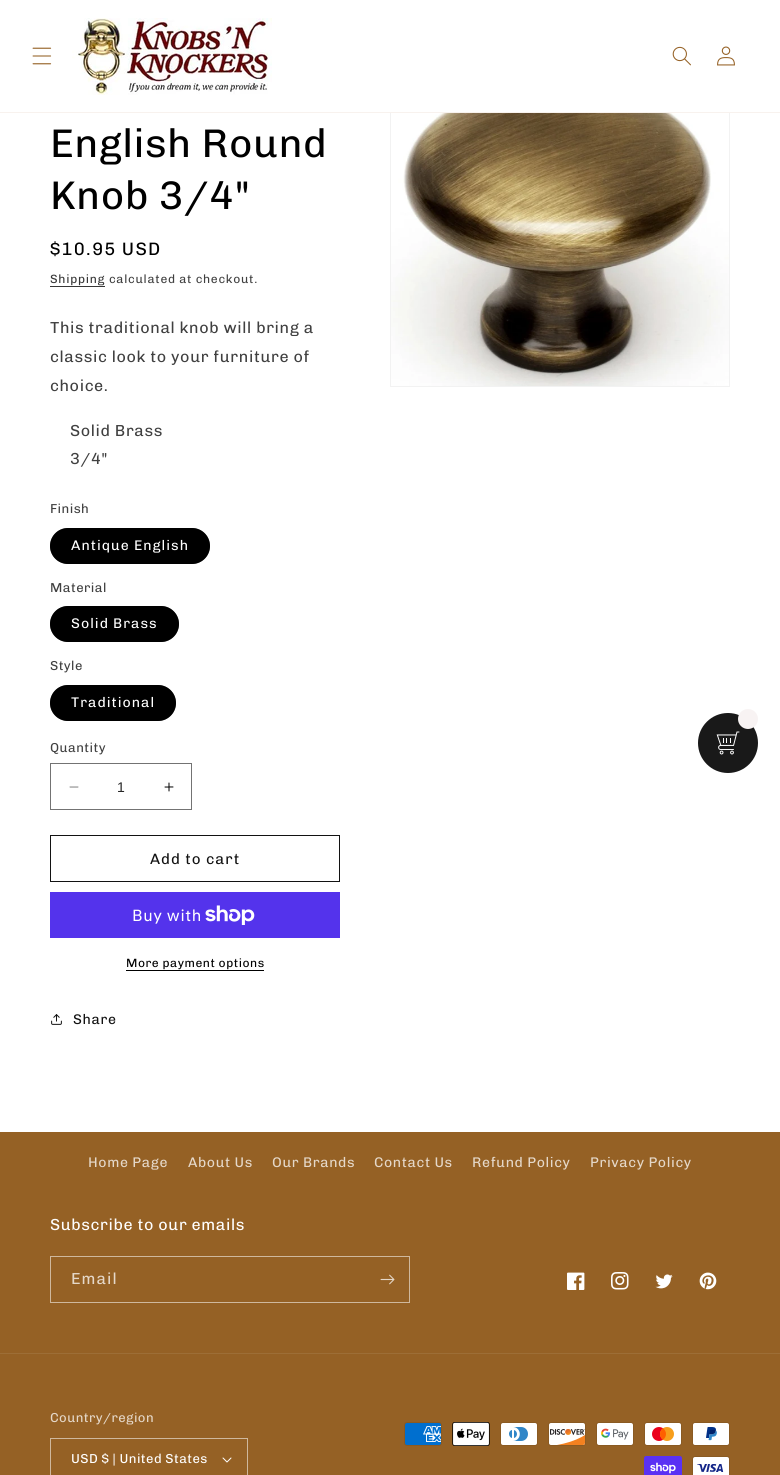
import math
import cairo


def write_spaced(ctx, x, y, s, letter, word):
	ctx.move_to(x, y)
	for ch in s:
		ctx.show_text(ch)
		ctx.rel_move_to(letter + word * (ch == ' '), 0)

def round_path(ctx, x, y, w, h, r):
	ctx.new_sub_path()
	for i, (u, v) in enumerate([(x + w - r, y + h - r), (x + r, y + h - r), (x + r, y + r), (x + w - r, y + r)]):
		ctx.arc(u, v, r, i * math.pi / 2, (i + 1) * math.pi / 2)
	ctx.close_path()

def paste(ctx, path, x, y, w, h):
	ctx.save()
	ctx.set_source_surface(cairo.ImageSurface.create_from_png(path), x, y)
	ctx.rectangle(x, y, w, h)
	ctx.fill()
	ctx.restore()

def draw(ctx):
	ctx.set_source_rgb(1, 1, 1)
	ctx.paint()
	ctx.rectangle(390.5, 65.5, 339, 321)
	ctx.set_source_rgb(0.949, 0.949, 0.949)
	ctx.set_line_width(1)
	ctx.stroke()
	ctx.set_source_rgb(1, 1, 1)
	ctx.rectangle(390, 65, 340, 47)
	ctx.fill()
	ctx.set_source_rgb(0.969, 0.949, 0.933)
	ctx.rectangle(0, 112, 780, 1)
	ctx.fill()
	paste(ctx, 'media/1.png', 32, 47, 20, 18)
	paste(ctx, 'media/2.png', 72, 18, 200, 77)
	paste(ctx, 'media/3.png', 672, 46, 19, 20)
	paste(ctx, 'media/4.png', 717, 46, 18, 20)
	ctx.select_font_face('Chivo')
	ctx.set_font_size(40)
	ctx.set_source_rgb(0, 0, 0)
	write_spaced(ctx, 50, 157, 'English Round', 0.6, 0)
	write_spaced(ctx, 50, 209, 'Knob 3/4"', 0.6, 0)
	ctx.set_font_size(18)
	write_spaced(ctx, 50, 255, '$10.95 USD', 1.25, 0)
	ctx.set_font_size(12)
	ctx.set_source_rgb(0.212, 0.212, 0.212)
	write_spaced(ctx, 50, 283, 'Shipping', 0.7, 0)
	ctx.rectangle(50, 286, 55, 1)
	ctx.fill()
	ctx.set_source_rgb(0.251, 0.251, 0.251)
	write_spaced(ctx, 109, 283, 'calculated at checkout.', 0.7, 0)
	ctx.set_font_size(16)
	for x, y, s in [
		(50, 333, 'This traditional knob will bring a'),
		(50, 362, 'classic look to your furniture of'),
		(50, 391, 'choice.'),
		(70, 436, 'Solid Brass'),
		(70, 464, '3/4"'),
	]:
		write_spaced(ctx, x, y, s, 0.6, 0)
	ctx.set_font_size(13)
	write_spaced(ctx, 50, 513, 'Finish', 0.4, 0)
	ctx.set_source_rgb(0, 0, 0)
	round_path(ctx, 50, 528, 160, 36, 18)
	ctx.fill()
	round_path(ctx, 50.5, 528.5, 159, 35, 17.5)
	ctx.set_source_rgba(0, 0, 0, 0.55)
	ctx.stroke()
	ctx.set_font_size(14)
	ctx.set_source_rgb(1, 1, 1)
	write_spaced(ctx, 71, 550, 'Antique English', 1, 0)
	ctx.set_font_size(13)
	ctx.set_source_rgb(0.251, 0.251, 0.251)
	write_spaced(ctx, 50, 592, 'Material', 0.4, 0)
	ctx.set_source_rgb(0, 0, 0)
	round_path(ctx, 50, 606, 129, 36, 18)
	ctx.fill()
	round_path(ctx, 50.5, 606.5, 128, 35, 17.5)
	ctx.set_source_rgba(0, 0, 0, 0.55)
	ctx.stroke()
	ctx.set_font_size(14)
	ctx.set_source_rgb(1, 1, 1)
	write_spaced(ctx, 71, 628, 'Solid Brass', 1, 0)
	ctx.set_font_size(13)
	ctx.set_source_rgb(0.251, 0.251, 0.251)
	write_spaced(ctx, 50, 670, 'Style', 0.4, 0)
	ctx.set_source_rgb(0, 0, 0)
	round_path(ctx, 50, 685, 126, 36, 18)
	ctx.fill()
	round_path(ctx, 50.5, 685.5, 125, 35, 17.5)
	ctx.set_source_rgba(0, 0, 0, 0.55)
	ctx.stroke()
	ctx.set_font_size(14)
	ctx.set_source_rgb(1, 1, 1)
	write_spaced(ctx, 71, 707, 'Traditional', 1, 0)
	ctx.set_font_size(13)
	ctx.set_source_rgb(0.251, 0.251, 0.251)
	write_spaced(ctx, 50, 752, 'Quantity', 0.4, 0)
	paste(ctx, 'media/5.png', 69, 786, 10, 2)
	paste(ctx, 'media/6.png', 164, 782, 10, 10)
	ctx.rectangle(50.5, 763.5, 141, 46)
	ctx.set_source_rgb(0.451, 0.451, 0.451)
	ctx.stroke()
	ctx.select_font_face('Liberation Sans')
	ctx.set_font_size(14)
	ctx.set_source_rgb(0.149, 0.149, 0.149)
	ctx.move_to(117, 792)
	ctx.show_text('1')
	ctx.rectangle(50.5, 835.5, 289, 46)
	ctx.set_source_rgb(0.071, 0.071, 0.071)
	ctx.stroke()
	ctx.select_font_face('Chivo')
	ctx.set_font_size(15)
	write_spaced(ctx, 150, 864, 'Add to cart', 1, 0)
	ctx.set_source_rgb(0.329, 0.2, 0.922)
	ctx.rectangle(50, 892, 290, 46)
	ctx.fill()
	ctx.select_font_face('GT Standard')
	ctx.set_font_size(16)
	ctx.set_source_rgb(1, 1, 1)
	write_spaced(ctx, 132, 921, 'Buy with', 0.6, 0)
	paste(ctx, 'media/7.png', 205, 905, 50, 20)
	ctx.select_font_face('Chivo')
	ctx.set_font_size(12)
	ctx.set_source_rgb(0, 0, 0)
	write_spaced(ctx, 126, 967, 'More payment options', 0.5, 0)
	ctx.rectangle(126, 970, 138, 1)
	ctx.fill()
	paste(ctx, 'media/8.png', 51, 1014, 11, 11)
	ctx.set_font_size(14)
	ctx.set_source_rgb(0.071, 0.071, 0.071)
	write_spaced(ctx, 73, 1024, 'Share', 0.6, 0)
	paste(ctx, 'media/9.png', 391, 113, 338, 273)
	ctx.set_source_rgb(0.098, 0.098, 0.098)
	ctx.arc(728, 743, 30, 0, 2 * math.pi)
	ctx.fill()
	ctx.set_source_rgb(0.969, 0.953, 0.953)
	ctx.arc(748, 719, 10, 0, 2 * math.pi)
	ctx.fill()
	paste(ctx, 'media/10.png', 716, 731, 24, 24)
	ctx.set_source_rgb(0.584, 0.38, 0.145)
	ctx.rectangle(0, 1132, 780, 343)
	ctx.fill()
	ctx.set_source_rgb(0.898, 0.847, 0.788)
	for x, y, s in [
		(88, 1167, 'Home Page'),
		(188, 1167, 'About Us'),
		(272, 1167, 'Our Brands'),
		(374, 1167, 'Contact Us'),
		(472, 1167, 'Refund Policy'),
		(590, 1167, 'Privacy Policy'),
	]:
		write_spaced(ctx, x, y, s, 0.6, 0)
	ctx.set_font_size(16)
	ctx.set_source_rgb(1, 1, 1)
	write_spaced(ctx, 50, 1230, 'Subscribe to our emails', 0.6, 0)
	ctx.rectangle(50.5, 1256.5, 359, 46)
	ctx.set_source_rgb(0.812, 0.722, 0.616)
	ctx.stroke()
	ctx.set_source_rgb(0.898, 0.847, 0.788)
	write_spaced(ctx, 71, 1284, 'Email', 1, 0)
	paste(ctx, 'media/11.png', 380, 1274, 15, 11)
	paste(ctx, 'media/12.png', 567, 1272, 18, 18)
	paste(ctx, 'media/13.png', 611, 1272, 18, 18)
	paste(ctx, 'media/14.png', 655, 1274, 18, 15)
	paste(ctx, 'media/15.png', 699, 1272, 18, 18)
	ctx.set_source_rgb(0.616, 0.431, 0.212)
	ctx.rectangle(0, 1353, 780, 1)
	ctx.fill()
	ctx.set_font_size(13)
	ctx.set_source_rgb(0.898, 0.847, 0.788)
	write_spaced(ctx, 50, 1422, 'Country/region', 0.4, 0)
	paste(ctx, 'media/16.png', 222, 1457, 10, 6)
	ctx.rectangle(50.5, 1438.5, 197, 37)
	ctx.set_source_rgb(0.812, 0.722, 0.616)
	ctx.stroke()
	ctx.set_source_rgb(1, 1, 1)
	write_spaced(ctx, 71, 1463, 'USD $ | United States', 0.4, 0)
	paste(ctx, 'media/17.png', 404, 1422, 38, 24)
	paste(ctx, 'media/18.png', 452, 1422, 38, 24)
	paste(ctx, 'media/19.png', 500, 1422, 38, 24)
	paste(ctx, 'media/20.png', 548, 1422, 38, 24)
	paste(ctx, 'media/21.png', 596, 1422, 38, 24)
	paste(ctx, 'media/22.png', 644, 1422, 38, 24)
	paste(ctx, 'media/23.png', 692, 1422, 38, 24)
	paste(ctx, 'media/24.png', 644, 1456, 38, 19)
	paste(ctx, 'media/25.png', 692, 1456, 38, 19)


surface = cairo.ImageSurface(cairo.FORMAT_RGB24, 780, 1475)
ctx = cairo.Context(surface)
options = cairo.FontOptions()
options.set_hint_metrics(cairo.HINT_METRICS_OFF)
options.set_hint_style(cairo.HINT_STYLE_NONE)
ctx.set_font_options(options)
ctx.set_miter_limit(4)
draw(ctx)
surface.write_to_png('image.png')
